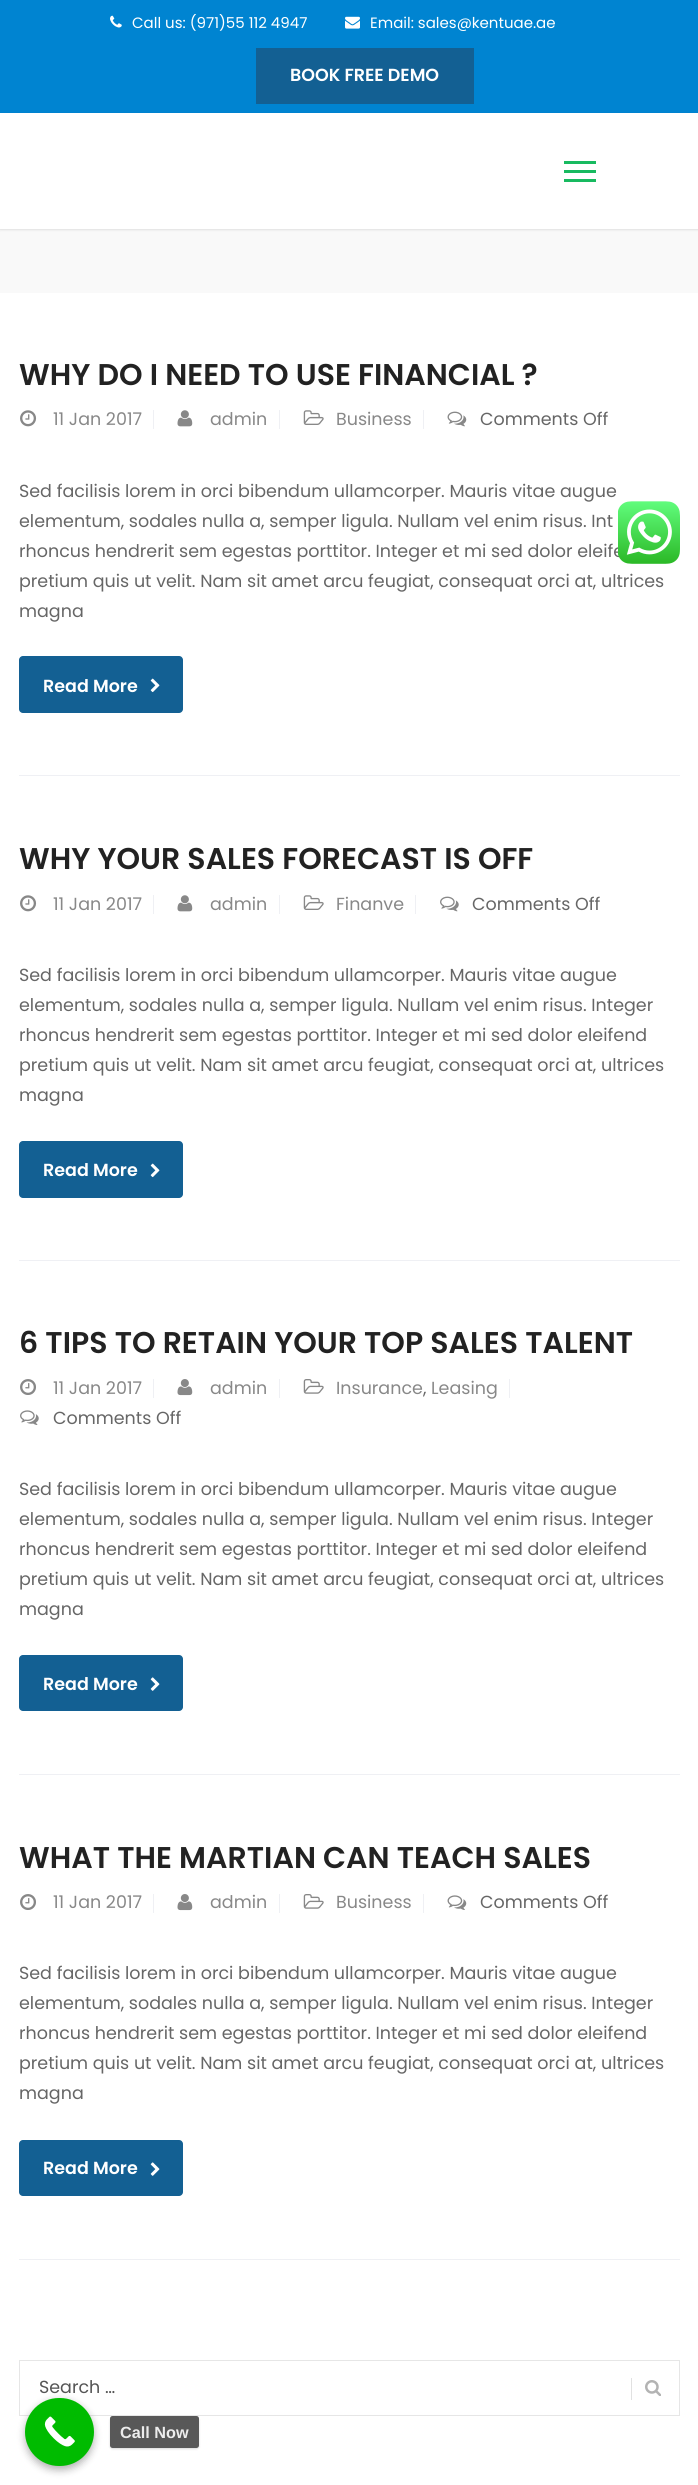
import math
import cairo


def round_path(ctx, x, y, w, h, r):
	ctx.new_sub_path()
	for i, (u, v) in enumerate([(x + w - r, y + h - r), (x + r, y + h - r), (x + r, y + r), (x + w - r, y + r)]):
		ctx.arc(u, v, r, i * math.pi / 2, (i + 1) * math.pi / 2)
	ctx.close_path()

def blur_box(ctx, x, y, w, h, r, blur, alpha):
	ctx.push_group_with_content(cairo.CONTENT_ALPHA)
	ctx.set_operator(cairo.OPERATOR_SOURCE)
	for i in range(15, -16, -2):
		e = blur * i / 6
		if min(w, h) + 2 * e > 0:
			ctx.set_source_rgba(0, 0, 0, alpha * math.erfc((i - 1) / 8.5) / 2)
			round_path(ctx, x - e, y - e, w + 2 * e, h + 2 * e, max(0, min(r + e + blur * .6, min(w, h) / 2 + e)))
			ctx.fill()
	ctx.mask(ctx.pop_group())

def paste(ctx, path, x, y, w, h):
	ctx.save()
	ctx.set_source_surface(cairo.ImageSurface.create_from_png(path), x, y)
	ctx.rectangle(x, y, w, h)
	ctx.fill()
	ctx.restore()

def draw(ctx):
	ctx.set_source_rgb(1, 1, 1)
	ctx.paint()
	ctx.set_source_rgb(0, 0.518, 0.82)
	ctx.rectangle(0, 0, 698, 113)
	ctx.fill()
	paste(ctx, 'media/1.png', 110, 15, 12, 13)
	ctx.select_font_face('Poppins')
	ctx.set_font_size(15)
	ctx.set_source_rgb(1, 1, 1)
	ctx.move_to(132, 28)
	ctx.show_text('Call us: (971)55 112 4947')
	paste(ctx, 'media/2.png', 345, 16, 15, 13)
	ctx.move_to(370, 28)
	ctx.show_text('Email: sales@kentuae.ae')
	ctx.set_source_rgb(0.075, 0.376, 0.576)
	ctx.rectangle(256, 48, 218, 56)
	ctx.fill()
	ctx.select_font_face('Poppins SemiBold')
	ctx.set_font_size(17.5)
	ctx.set_source_rgb(1, 1, 1)
	ctx.move_to(290, 81)
	ctx.show_text('BOOK FREE DEMO')
	ctx.set_source_rgb(0.973, 0.973, 0.973)
	ctx.rectangle(0, 229, 698, 64)
	ctx.fill()
	ctx.save()
	ctx.set_fill_rule(cairo.FILL_RULE_EVEN_ODD)
	ctx.new_path()
	ctx.move_to(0, 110)
	ctx.line_to(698, 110)
	ctx.line_to(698, 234)
	ctx.line_to(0, 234)
	ctx.close_path()
	ctx.move_to(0, 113)
	ctx.line_to(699, 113)
	ctx.line_to(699, 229)
	ctx.line_to(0, 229)
	ctx.close_path()
	ctx.clip()
	ctx.set_source_rgb(0, 0, 0)
	blur_box(ctx, 0, 114, 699, 116, 0, 1, 0.1)
	ctx.restore()
	ctx.set_source_rgb(0.094, 0.729, 0.376)
	ctx.rectangle(564, 161, 32, 3)
	ctx.rectangle(564, 170, 32, 3)
	ctx.rectangle(564, 179, 32, 3)
	ctx.fill()
	ctx.set_source_rgb(0.937, 0.941, 0.957)
	ctx.rectangle(19, 775, 661, 1)
	ctx.fill()
	ctx.set_font_size(30)
	ctx.set_source_rgb(0.133, 0.133, 0.133)
	ctx.move_to(19, 385)
	ctx.show_text('WHY DO I NEED TO USE FINANCIAL ?')
	paste(ctx, 'media/3.png', 20, 410, 17, 17)
	ctx.select_font_face('Poppins')
	ctx.set_font_size(17.5)
	ctx.set_source_rgb(0.533, 0.533, 0.533)
	ctx.move_to(53, 425)
	ctx.show_text('11 Jan 2017')
	ctx.set_source_rgb(0.937, 0.941, 0.957)
	ctx.rectangle(153, 410, 1, 19)
	ctx.fill()
	paste(ctx, 'media/4.png', 177, 410, 16, 17)
	ctx.set_source_rgb(0.533, 0.533, 0.533)
	ctx.move_to(210, 425)
	ctx.show_text('admin')
	ctx.set_source_rgb(0.937, 0.941, 0.957)
	ctx.rectangle(279, 410, 1, 19)
	ctx.fill()
	paste(ctx, 'media/5.png', 303, 410, 21, 15)
	ctx.set_source_rgb(0.533, 0.533, 0.533)
	ctx.move_to(336, 425)
	ctx.show_text('Business')
	ctx.set_source_rgb(0.937, 0.941, 0.957)
	ctx.rectangle(423, 410, 1, 19)
	ctx.fill()
	paste(ctx, 'media/6.png', 447, 411, 20, 16)
	ctx.set_source_rgb(0.4, 0.4, 0.4)
	for x, y, s in [
		(480, 425, 'Comments Off'),
		(19, 497, 'Sed facilisis lorem in orci bibendum ullamcorper. Mauris vitae augue'),
		(19, 527, 'elementum, sodales nulla a, semper ligula. Nullam vel enim risus. Int'),
		(19, 557, 'rhoncus hendrerit sem egestas porttitor. Integer et mi sed dolor eleife'),
		(19, 587, 'pretium quis ut velit. Nam sit amet arcu feugiat, consequat orci at, ultrices'),
		(19, 617, 'magna'),
	]:
		ctx.move_to(x, y)
		ctx.show_text(s)
	ctx.set_source_rgb(0.075, 0.376, 0.576)
	round_path(ctx, 19, 656, 164, 57, 4)
	ctx.fill()
	ctx.select_font_face('Poppins SemiBold')
	ctx.set_source_rgb(1, 1, 1)
	ctx.move_to(43, 692)
	ctx.show_text('Read More')
	paste(ctx, 'media/7.png', 150, 678, 10, 15)
	ctx.set_source_rgb(0.937, 0.941, 0.957)
	ctx.rectangle(19, 1260, 661, 1)
	ctx.fill()
	ctx.set_font_size(30)
	ctx.set_source_rgb(0.133, 0.133, 0.133)
	ctx.move_to(19, 869)
	ctx.show_text('WHY YOUR SALES FORECAST IS OFF')
	paste(ctx, 'media/3.png', 20, 895, 17, 17)
	ctx.select_font_face('Poppins')
	ctx.set_font_size(17.5)
	ctx.set_source_rgb(0.533, 0.533, 0.533)
	ctx.move_to(53, 910)
	ctx.show_text('11 Jan 2017')
	ctx.set_source_rgb(0.937, 0.941, 0.957)
	ctx.rectangle(153, 895, 1, 19)
	ctx.fill()
	paste(ctx, 'media/4.png', 177, 895, 16, 17)
	ctx.set_source_rgb(0.533, 0.533, 0.533)
	ctx.move_to(210, 910)
	ctx.show_text('admin')
	ctx.set_source_rgb(0.937, 0.941, 0.957)
	ctx.rectangle(279, 895, 1, 19)
	ctx.fill()
	paste(ctx, 'media/5.png', 303, 895, 21, 15)
	ctx.set_source_rgb(0.533, 0.533, 0.533)
	ctx.move_to(336, 910)
	ctx.show_text('Finanve')
	ctx.set_source_rgb(0.937, 0.941, 0.957)
	ctx.rectangle(415, 895, 1, 19)
	ctx.fill()
	paste(ctx, 'media/8.png', 440, 896, 19, 16)
	ctx.set_source_rgb(0.4, 0.4, 0.4)
	for x, y, s in [
		(472, 910, 'Comments Off'),
		(19, 981, 'Sed facilisis lorem in orci bibendum ullamcorper. Mauris vitae augue'),
		(19, 1011, 'elementum, sodales nulla a, semper ligula. Nullam vel enim risus. Integer'),
		(19, 1041, 'rhoncus hendrerit sem egestas porttitor. Integer et mi sed dolor eleifend'),
		(19, 1071, 'pretium quis ut velit. Nam sit amet arcu feugiat, consequat orci at, ultrices'),
		(19, 1101, 'magna'),
	]:
		ctx.move_to(x, y)
		ctx.show_text(s)
	ctx.set_source_rgb(0.075, 0.376, 0.576)
	round_path(ctx, 19, 1141, 164, 57, 4)
	ctx.fill()
	ctx.select_font_face('Poppins SemiBold')
	ctx.set_source_rgb(1, 1, 1)
	ctx.move_to(43, 1176)
	ctx.show_text('Read More')
	paste(ctx, 'media/7.png', 150, 1163, 10, 15)
	ctx.set_source_rgb(0.937, 0.941, 0.957)
	ctx.rectangle(19, 1774, 661, 1)
	ctx.fill()
	ctx.set_font_size(30)
	ctx.set_source_rgb(0.133, 0.133, 0.133)
	ctx.move_to(19, 1353)
	ctx.show_text('6 TIPS TO RETAIN YOUR TOP SALES TALENT')
	paste(ctx, 'media/9.png', 20, 1379, 16, 16)
	ctx.select_font_face('Poppins')
	ctx.set_font_size(17.5)
	ctx.set_source_rgb(0.533, 0.533, 0.533)
	ctx.move_to(53, 1394)
	ctx.show_text('11 Jan 2017')
	ctx.set_source_rgb(0.937, 0.941, 0.957)
	ctx.rectangle(153, 1379, 1, 19)
	ctx.fill()
	paste(ctx, 'media/10.png', 177, 1379, 16, 17)
	ctx.set_source_rgb(0.533, 0.533, 0.533)
	ctx.move_to(210, 1394)
	ctx.show_text('admin')
	ctx.set_source_rgb(0.937, 0.941, 0.957)
	ctx.rectangle(279, 1379, 1, 19)
	ctx.fill()
	paste(ctx, 'media/11.png', 303, 1379, 21, 15)
	ctx.set_source_rgb(0.533, 0.533, 0.533)
	ctx.move_to(336, 1394)
	ctx.show_text('Insurance')
	ctx.set_source_rgb(0.4, 0.4, 0.4)
	ctx.move_to(423, 1394)
	ctx.show_text(',')
	ctx.set_source_rgb(0.533, 0.533, 0.533)
	ctx.move_to(431, 1394)
	ctx.show_text('Leasing')
	ctx.set_source_rgb(0.937, 0.941, 0.957)
	ctx.rectangle(509, 1379, 1, 19)
	ctx.fill()
	paste(ctx, 'media/12.png', 20, 1410, 19, 15)
	ctx.set_source_rgb(0.4, 0.4, 0.4)
	for x, y, s in [
		(53, 1424, 'Comments Off'),
		(19, 1495, 'Sed facilisis lorem in orci bibendum ullamcorper. Mauris vitae augue'),
		(19, 1525, 'elementum, sodales nulla a, semper ligula. Nullam vel enim risus. Integer'),
		(19, 1555, 'rhoncus hendrerit sem egestas porttitor. Integer et mi sed dolor eleifend'),
		(19, 1585, 'pretium quis ut velit. Nam sit amet arcu feugiat, consequat orci at, ultrices'),
		(19, 1615, 'magna'),
	]:
		ctx.move_to(x, y)
		ctx.show_text(s)
	ctx.set_source_rgb(0.075, 0.376, 0.576)
	round_path(ctx, 19, 1655, 164, 56, 4)
	ctx.fill()
	ctx.select_font_face('Poppins SemiBold')
	ctx.set_source_rgb(1, 1, 1)
	ctx.move_to(43, 1690)
	ctx.show_text('Read More')
	paste(ctx, 'media/13.png', 150, 1677, 10, 14)
	ctx.set_source_rgb(0.937, 0.941, 0.957)
	ctx.rectangle(19, 2259, 661, 1)
	ctx.fill()
	ctx.set_font_size(30)
	ctx.set_source_rgb(0.133, 0.133, 0.133)
	ctx.move_to(19, 1868)
	ctx.show_text('WHAT THE MARTIAN CAN TEACH SALES')
	paste(ctx, 'media/9.png', 20, 1894, 16, 16)
	ctx.select_font_face('Poppins')
	ctx.set_font_size(17.5)
	ctx.set_source_rgb(0.533, 0.533, 0.533)
	ctx.move_to(53, 1908)
	ctx.show_text('11 Jan 2017')
	ctx.set_source_rgb(0.937, 0.941, 0.957)
	ctx.rectangle(153, 1894, 1, 19)
	ctx.fill()
	paste(ctx, 'media/10.png', 177, 1894, 16, 17)
	ctx.set_source_rgb(0.533, 0.533, 0.533)
	ctx.move_to(210, 1908)
	ctx.show_text('admin')
	ctx.set_source_rgb(0.937, 0.941, 0.957)
	ctx.rectangle(279, 1894, 1, 19)
	ctx.fill()
	paste(ctx, 'media/11.png', 303, 1894, 21, 15)
	ctx.set_source_rgb(0.533, 0.533, 0.533)
	ctx.move_to(336, 1908)
	ctx.show_text('Business')
	ctx.set_source_rgb(0.937, 0.941, 0.957)
	ctx.rectangle(423, 1894, 1, 19)
	ctx.fill()
	paste(ctx, 'media/14.png', 447, 1895, 20, 15)
	ctx.set_source_rgb(0.4, 0.4, 0.4)
	for x, y, s in [
		(480, 1908, 'Comments Off'),
		(19, 1979, 'Sed facilisis lorem in orci bibendum ullamcorper. Mauris vitae augue'),
		(19, 2009, 'elementum, sodales nulla a, semper ligula. Nullam vel enim risus. Integer'),
		(19, 2039, 'rhoncus hendrerit sem egestas porttitor. Integer et mi sed dolor eleifend'),
		(19, 2069, 'pretium quis ut velit. Nam sit amet arcu feugiat, consequat orci at, ultrices'),
		(19, 2099, 'magna'),
	]:
		ctx.move_to(x, y)
		ctx.show_text(s)
	ctx.set_source_rgb(0.075, 0.376, 0.576)
	round_path(ctx, 19, 2140, 164, 56, 4)
	ctx.fill()
	ctx.select_font_face('Poppins SemiBold')
	ctx.set_source_rgb(1, 1, 1)
	ctx.move_to(43, 2174)
	ctx.show_text('Read More')
	paste(ctx, 'media/13.png', 150, 2162, 10, 14)
	ctx.rectangle(19.5, 2360.5, 660, 55)
	ctx.set_source_rgb(0.902, 0.902, 0.902)
	ctx.set_line_width(1)
	ctx.stroke()
	ctx.select_font_face('Poppins')
	ctx.set_source_rgb(0.333, 0.333, 0.333)
	ctx.move_to(39, 2393)
	ctx.show_text('Search …')
	paste(ctx, 'media/15.png', 645, 2380, 16, 16)
	ctx.set_source_rgb(0.882, 0.882, 0.882)
	ctx.rectangle(631, 2378, 1, 22)
	ctx.fill()
	paste(ctx, 'media/16.png', 618, 501, 62, 63)
	ctx.set_source_rgb(0, 0, 0)
	blur_box(ctx, 25, 2401, 69, 69, 34.5, 4, 0.3)
	ctx.set_source_rgb(0, 0.733, 0)
	round_path(ctx, 25, 2398, 69, 68, 34)
	ctx.fill()
	paste(ctx, 'media/17.png', 44, 2416, 31, 31)
	ctx.save()
	ctx.set_fill_rule(cairo.FILL_RULE_EVEN_ODD)
	ctx.new_path()
	ctx.move_to(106, 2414)
	ctx.line_to(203, 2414)
	ctx.line_to(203, 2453)
	ctx.line_to(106, 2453)
	ctx.close_path()
	ctx.move_to(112.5, 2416)
	ctx.line_to(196.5, 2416)
	ctx.curve_to(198, 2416, 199, 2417, 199, 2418.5)
	ctx.line_to(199, 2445.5)
	ctx.curve_to(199, 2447, 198, 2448, 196.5, 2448)
	ctx.line_to(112.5, 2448)
	ctx.curve_to(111, 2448, 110, 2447, 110, 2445.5)
	ctx.line_to(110, 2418.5)
	ctx.curve_to(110, 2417, 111, 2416, 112.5, 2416)
	ctx.close_path()
	ctx.clip()
	ctx.set_source_rgb(0, 0, 0)
	blur_box(ctx, 110, 2418, 89, 31, 2.5, 1, 0.15)
	ctx.restore()
	ctx.set_source_rgba(0.275, 0.275, 0.275, 0.9)
	round_path(ctx, 110, 2416, 89, 32, 2.5)
	ctx.fill()
	ctx.select_font_face('Liberation Sans', cairo.FONT_SLANT_NORMAL, cairo.FONT_WEIGHT_BOLD)
	ctx.set_font_size(16.25)
	ctx.set_source_rgb(0.925, 0.925, 0.925)
	ctx.move_to(120, 2438)
	ctx.show_text('Call Now')


surface = cairo.ImageSurface(cairo.FORMAT_RGB24, 698, 2485)
ctx = cairo.Context(surface)
options = cairo.FontOptions()
options.set_hint_metrics(cairo.HINT_METRICS_OFF)
options.set_hint_style(cairo.HINT_STYLE_NONE)
ctx.set_font_options(options)
ctx.set_miter_limit(4)
draw(ctx)
surface.write_to_png('image.png')
